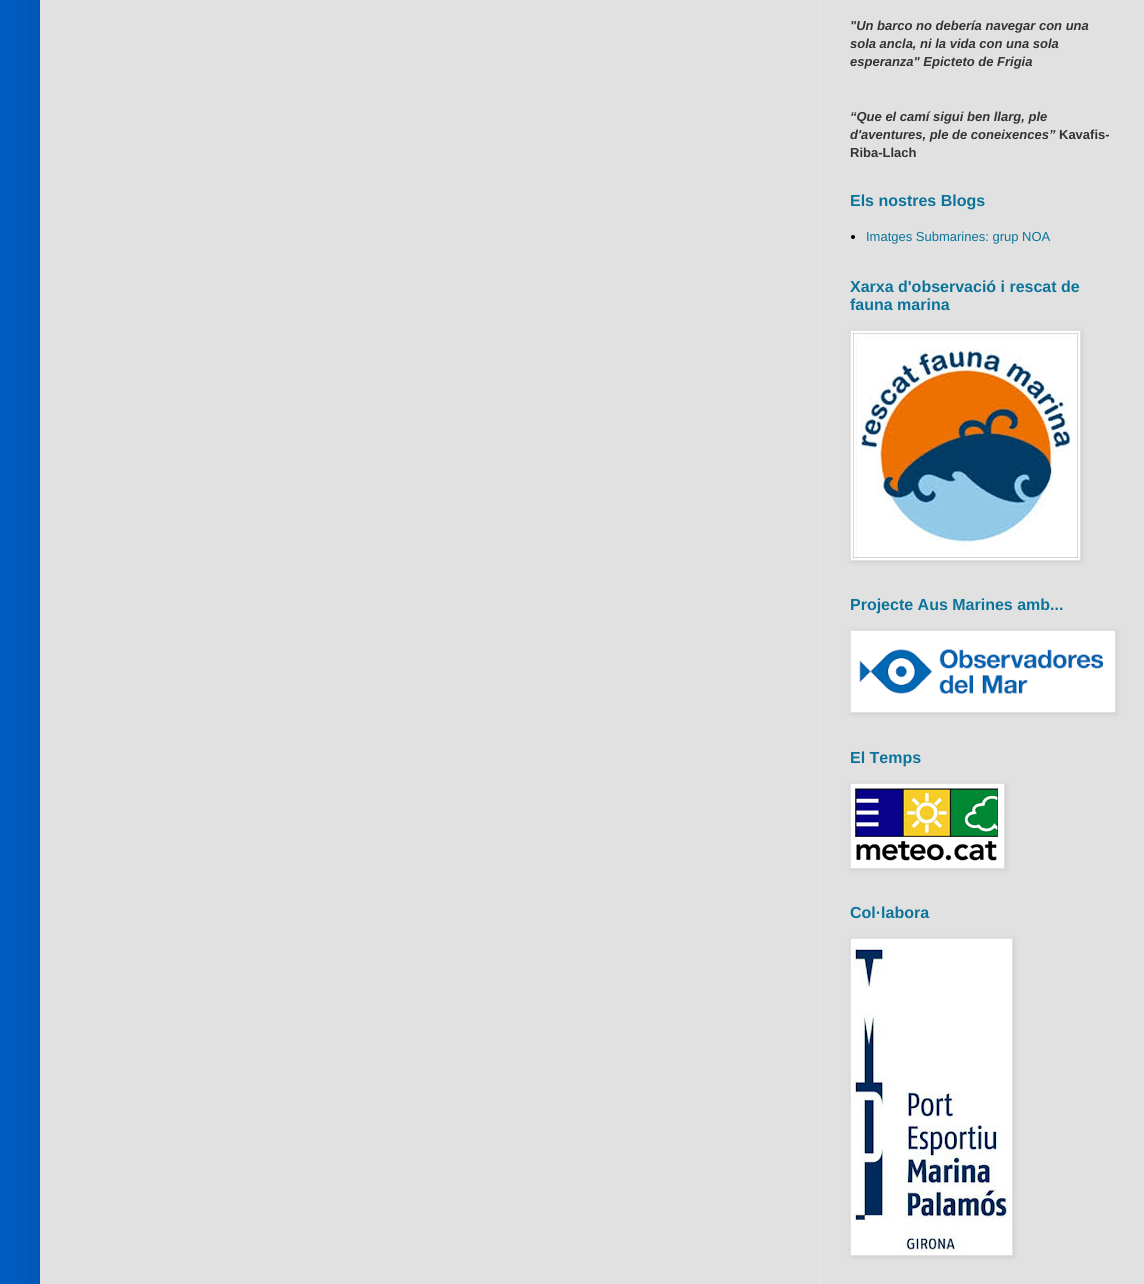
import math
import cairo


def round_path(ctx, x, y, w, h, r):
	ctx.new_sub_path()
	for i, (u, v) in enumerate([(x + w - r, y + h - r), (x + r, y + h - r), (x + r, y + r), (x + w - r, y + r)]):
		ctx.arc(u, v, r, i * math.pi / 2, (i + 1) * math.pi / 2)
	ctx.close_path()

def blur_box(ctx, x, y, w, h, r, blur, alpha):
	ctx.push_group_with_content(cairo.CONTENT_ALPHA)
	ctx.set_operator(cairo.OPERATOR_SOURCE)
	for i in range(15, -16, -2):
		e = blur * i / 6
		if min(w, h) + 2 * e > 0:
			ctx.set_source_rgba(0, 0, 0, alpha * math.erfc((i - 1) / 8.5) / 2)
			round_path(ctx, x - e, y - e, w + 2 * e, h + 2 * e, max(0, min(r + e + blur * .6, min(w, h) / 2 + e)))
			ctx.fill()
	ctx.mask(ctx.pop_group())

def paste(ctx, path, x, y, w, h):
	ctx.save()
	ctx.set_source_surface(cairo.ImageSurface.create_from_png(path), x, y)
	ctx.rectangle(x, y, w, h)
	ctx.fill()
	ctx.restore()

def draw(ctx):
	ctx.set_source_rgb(0, 0.361, 0.761)
	ctx.paint()
	ctx.set_source_rgb(0, 0, 0)
	blur_box(ctx, 40, -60, 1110, 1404, 0, 20, 0.15)
	ctx.set_source_rgb(0.882, 0.882, 0.882)
	ctx.rectangle(40, 0, 1104, 1284)
	ctx.fill()
	ctx.set_source_rgb(0.914, 0.914, 0.914)
	ctx.rectangle(820, 0, 1, 1284)
	ctx.fill()
	ctx.select_font_face('Liberation Sans', cairo.FONT_SLANT_ITALIC, cairo.FONT_WEIGHT_BOLD)
	ctx.set_font_size(13)
	ctx.set_source_rgb(0.2, 0.2, 0.2)
	for x, y, s in [
		(850, 30, '"Un barco no debería navegar con una'),
		(850, 48, 'sola ancla, ni la vida con una sola'),
		(850, 66, 'esperanza" Epicteto de Frigia'),
		(850, 121, '“Que el camí sigui ben llarg, ple'),
		(850, 139, 'd\'aventures, ple de coneixences”'),
	]:
		ctx.move_to(x, y)
		ctx.show_text(s)
	ctx.select_font_face('Liberation Sans', cairo.FONT_SLANT_NORMAL, cairo.FONT_WEIGHT_BOLD)
	ctx.move_to(1059, 139)
	ctx.show_text('Kavafis-')
	ctx.move_to(850, 157)
	ctx.show_text('Riba-Llach')
	ctx.set_font_size(16)
	ctx.set_source_rgb(0.047, 0.455, 0.604)
	ctx.move_to(850, 206)
	ctx.show_text('Els nostres Blogs')
	ctx.set_source_rgb(0, 0, 0)
	ctx.new_path()
	ctx.arc(853, 237, 2, 0, 2 * math.pi)
	ctx.fill()
	ctx.select_font_face('Liberation Sans')
	ctx.set_font_size(13)
	ctx.set_source_rgb(0.047, 0.455, 0.604)
	ctx.move_to(866, 241)
	ctx.show_text('Imatges Submarines: grup NOA')
	ctx.select_font_face('Liberation Sans', cairo.FONT_SLANT_NORMAL, cairo.FONT_WEIGHT_BOLD)
	ctx.set_font_size(16)
	ctx.move_to(850, 292)
	ctx.show_text('Xarxa d\'observació i rescat de')
	ctx.move_to(850, 310)
	ctx.show_text('fauna marina')
	ctx.set_source_rgb(0, 0, 0)
	blur_box(ctx, 851, 331, 231, 231, 0, 2.5, 0.1)
	ctx.set_source_rgb(1, 1, 1)
	ctx.rectangle(850.5, 330.5, 230, 230)
	ctx.fill_preserve()
	ctx.set_source_rgb(0.882, 0.882, 0.882)
	ctx.set_line_width(1)
	ctx.stroke()
	paste(ctx, 'media/1.png', 853, 333, 225, 225)
	ctx.set_source_rgb(0.047, 0.455, 0.604)
	ctx.move_to(850, 610)
	ctx.show_text('Projecte Aus Marines amb...')
	ctx.set_source_rgb(0, 0, 0)
	blur_box(ctx, 851, 631, 266, 83, 0, 2.5, 0.1)
	ctx.set_source_rgb(1, 1, 1)
	ctx.rectangle(850.5, 630.5, 265, 82)
	ctx.fill_preserve()
	ctx.set_source_rgb(0.882, 0.882, 0.882)
	ctx.stroke()
	paste(ctx, 'media/2.png', 859, 649, 245, 45)
	ctx.set_source_rgb(0.047, 0.455, 0.604)
	ctx.move_to(850, 763)
	ctx.show_text('El Temps')
	ctx.set_source_rgb(0, 0, 0)
	blur_box(ctx, 851, 784, 155, 86, 0, 2.5, 0.1)
	ctx.set_source_rgb(1, 1, 1)
	ctx.rectangle(850.5, 783.5, 154, 85)
	ctx.fill_preserve()
	ctx.set_source_rgb(0.882, 0.882, 0.882)
	ctx.stroke()
	paste(ctx, 'media/3.png', 855, 788, 143, 73)
	ctx.set_source_rgb(0.047, 0.455, 0.604)
	ctx.move_to(850, 918)
	ctx.show_text('Col·labora')
	ctx.set_source_rgb(0, 0, 0)
	blur_box(ctx, 851, 939, 163, 318, 0, 2.5, 0.1)
	ctx.set_source_rgb(1, 1, 1)
	ctx.rectangle(850.5, 938.5, 162, 317)
	ctx.fill_preserve()
	ctx.set_source_rgb(0.882, 0.882, 0.882)
	ctx.stroke()
	paste(ctx, 'media/4.png', 853, 946, 157, 307)


surface = cairo.ImageSurface(cairo.FORMAT_RGB24, 1144, 1284)
ctx = cairo.Context(surface)
options = cairo.FontOptions()
options.set_hint_metrics(cairo.HINT_METRICS_OFF)
options.set_hint_style(cairo.HINT_STYLE_NONE)
ctx.set_font_options(options)
ctx.set_miter_limit(4)
draw(ctx)
surface.write_to_png('image.png')
